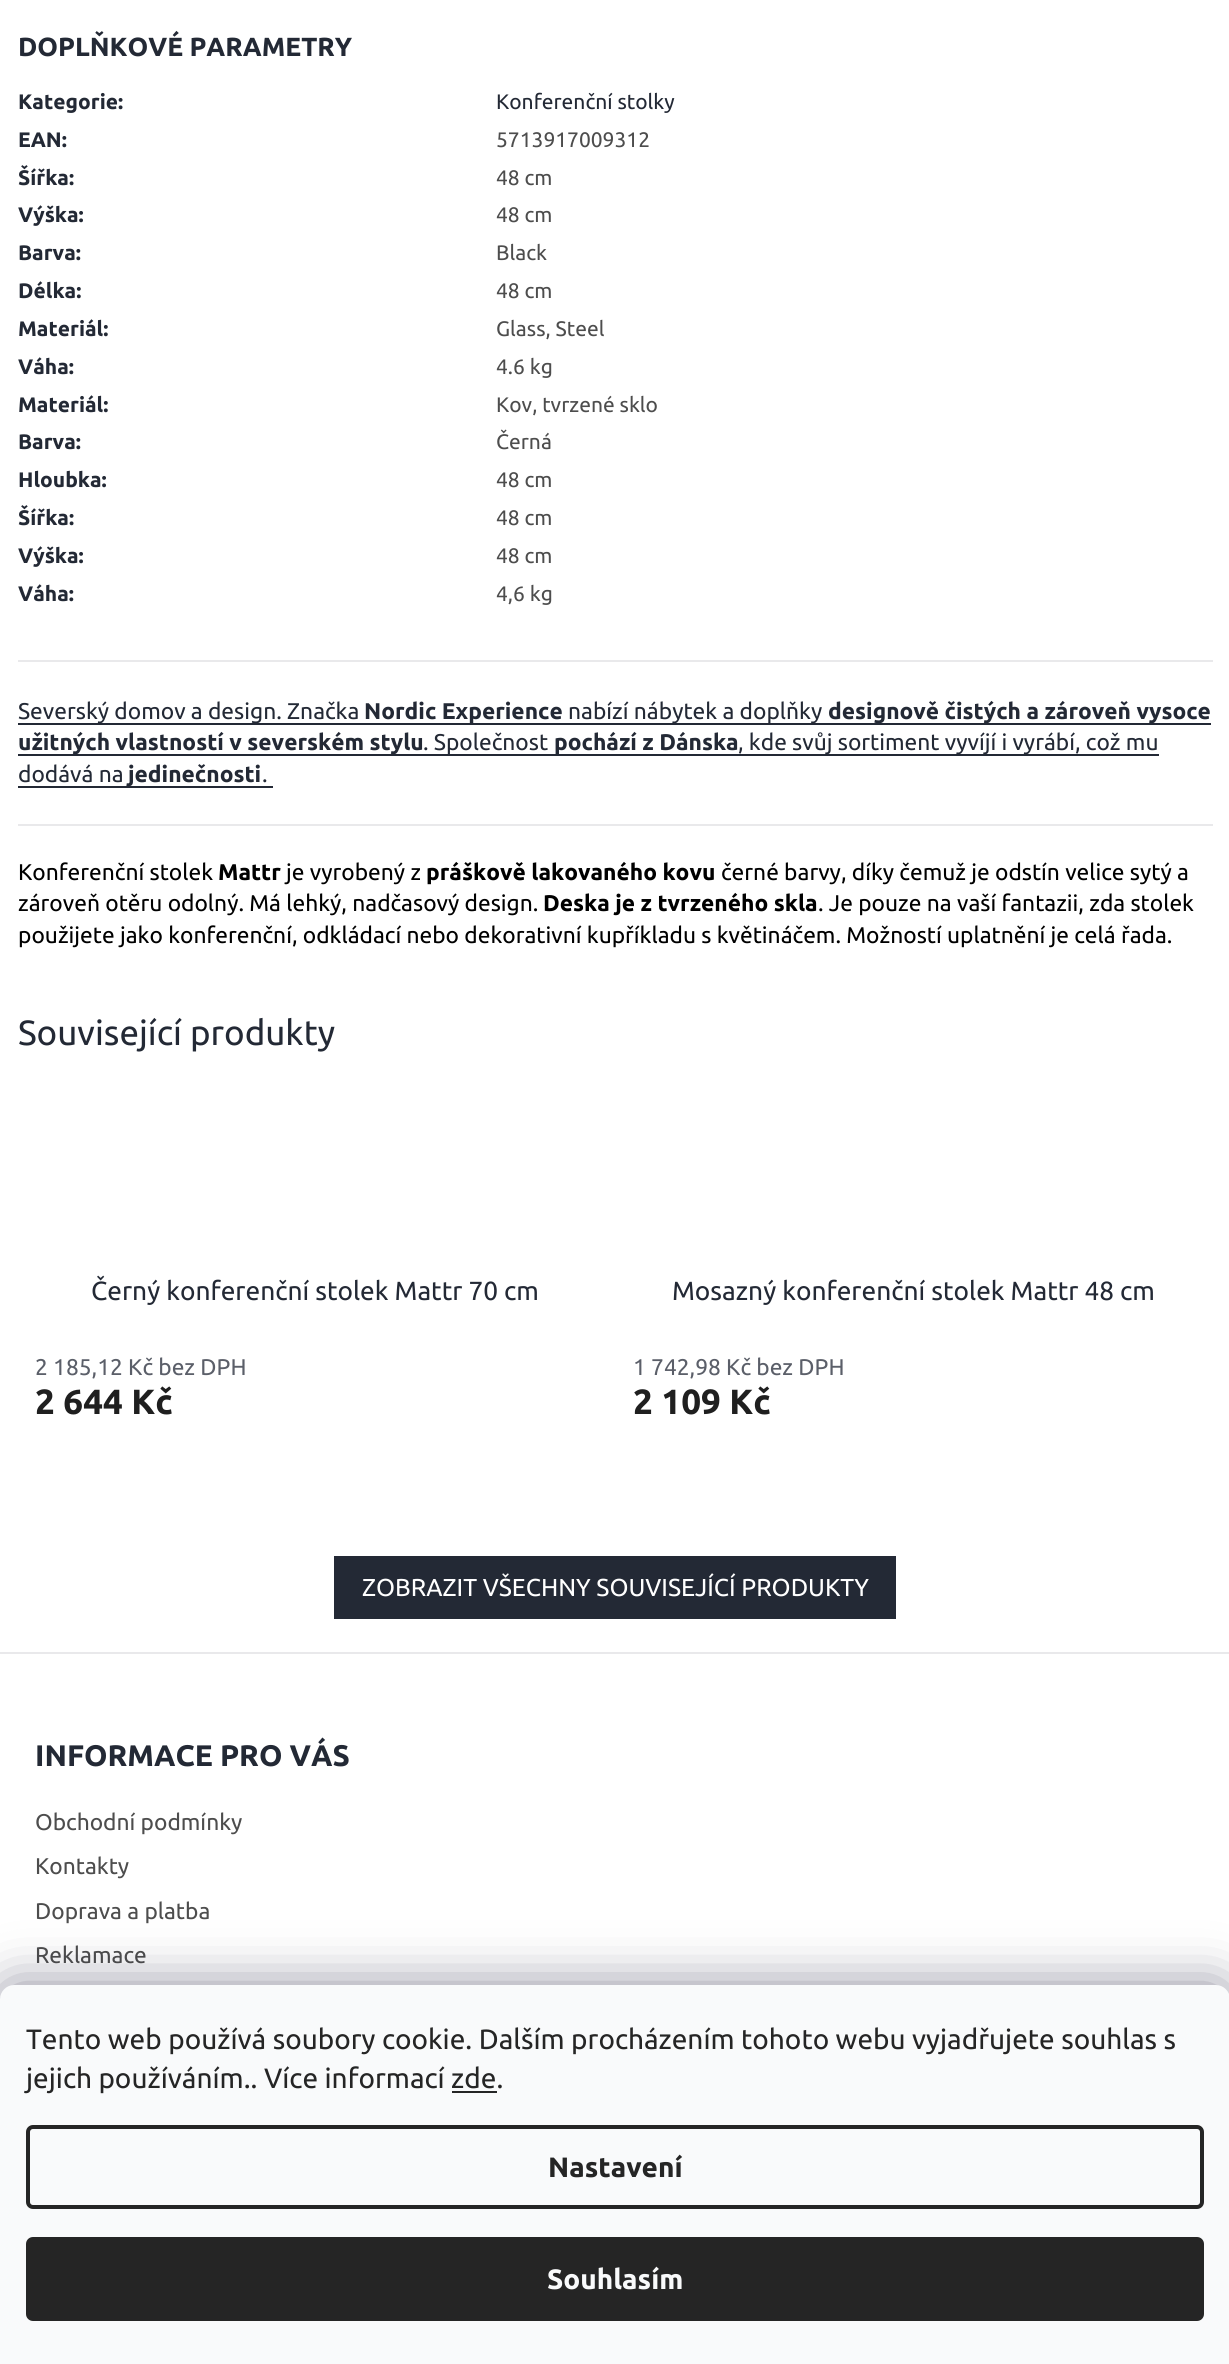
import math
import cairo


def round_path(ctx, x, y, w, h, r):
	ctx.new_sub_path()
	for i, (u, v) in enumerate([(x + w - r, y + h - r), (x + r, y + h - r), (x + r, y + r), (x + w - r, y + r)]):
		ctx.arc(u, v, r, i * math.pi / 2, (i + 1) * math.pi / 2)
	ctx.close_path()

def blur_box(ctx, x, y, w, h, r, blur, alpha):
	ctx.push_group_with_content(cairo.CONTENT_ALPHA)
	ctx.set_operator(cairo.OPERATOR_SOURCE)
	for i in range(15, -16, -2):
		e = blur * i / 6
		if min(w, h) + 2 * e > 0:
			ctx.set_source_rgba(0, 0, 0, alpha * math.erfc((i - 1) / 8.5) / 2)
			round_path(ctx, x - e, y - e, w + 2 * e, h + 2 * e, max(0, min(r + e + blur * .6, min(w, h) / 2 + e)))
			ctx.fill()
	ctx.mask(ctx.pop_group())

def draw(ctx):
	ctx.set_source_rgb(1, 1, 1)
	ctx.paint()
	ctx.set_source_rgb(0.914, 0.914, 0.918)
	ctx.rectangle(18, 660, 1195, 2)
	ctx.fill()
	ctx.select_font_face('Ubuntu', cairo.FONT_SLANT_NORMAL, cairo.FONT_WEIGHT_BOLD)
	ctx.set_font_size(26.25)
	ctx.set_source_rgb(0.137, 0.161, 0.208)
	ctx.move_to(18, 56)
	ctx.show_text('DOPLŇKOVÉ PARAMETRY')
	ctx.set_font_size(21)
	ctx.move_to(18, 109)
	ctx.show_text('Kategorie:')
	ctx.select_font_face('Ubuntu')
	ctx.move_to(496, 109)
	ctx.show_text('Konferenční stolky')
	ctx.select_font_face('Ubuntu', cairo.FONT_SLANT_NORMAL, cairo.FONT_WEIGHT_BOLD)
	ctx.move_to(18, 147)
	ctx.show_text('EAN:')
	ctx.select_font_face('Ubuntu')
	ctx.set_source_rgb(0.302, 0.302, 0.302)
	ctx.move_to(496, 147)
	ctx.show_text('5713917009312')
	ctx.select_font_face('Ubuntu', cairo.FONT_SLANT_NORMAL, cairo.FONT_WEIGHT_BOLD)
	ctx.set_source_rgb(0.137, 0.161, 0.208)
	ctx.move_to(18, 185)
	ctx.show_text('Šířka:')
	ctx.select_font_face('Ubuntu')
	ctx.set_source_rgb(0.302, 0.302, 0.302)
	ctx.move_to(496, 185)
	ctx.show_text('48 cm')
	ctx.select_font_face('Ubuntu', cairo.FONT_SLANT_NORMAL, cairo.FONT_WEIGHT_BOLD)
	ctx.set_source_rgb(0.137, 0.161, 0.208)
	ctx.move_to(18, 222)
	ctx.show_text('Výška:')
	ctx.select_font_face('Ubuntu')
	ctx.set_source_rgb(0.302, 0.302, 0.302)
	ctx.move_to(496, 222)
	ctx.show_text('48 cm')
	ctx.select_font_face('Ubuntu', cairo.FONT_SLANT_NORMAL, cairo.FONT_WEIGHT_BOLD)
	ctx.set_source_rgb(0.137, 0.161, 0.208)
	ctx.move_to(18, 260)
	ctx.show_text('Barva:')
	ctx.select_font_face('Ubuntu')
	ctx.set_source_rgb(0.302, 0.302, 0.302)
	ctx.move_to(496, 260)
	ctx.show_text('Black')
	ctx.select_font_face('Ubuntu', cairo.FONT_SLANT_NORMAL, cairo.FONT_WEIGHT_BOLD)
	ctx.set_source_rgb(0.137, 0.161, 0.208)
	ctx.move_to(18, 298)
	ctx.show_text('Délka:')
	ctx.select_font_face('Ubuntu')
	ctx.set_source_rgb(0.302, 0.302, 0.302)
	ctx.move_to(496, 298)
	ctx.show_text('48 cm')
	ctx.select_font_face('Ubuntu', cairo.FONT_SLANT_NORMAL, cairo.FONT_WEIGHT_BOLD)
	ctx.set_source_rgb(0.137, 0.161, 0.208)
	ctx.move_to(18, 336)
	ctx.show_text('Materiál:')
	ctx.select_font_face('Ubuntu')
	ctx.set_source_rgb(0.302, 0.302, 0.302)
	ctx.move_to(496, 336)
	ctx.show_text('Glass, Steel')
	ctx.select_font_face('Ubuntu', cairo.FONT_SLANT_NORMAL, cairo.FONT_WEIGHT_BOLD)
	ctx.set_source_rgb(0.137, 0.161, 0.208)
	ctx.move_to(18, 374)
	ctx.show_text('Váha:')
	ctx.select_font_face('Ubuntu')
	ctx.set_source_rgb(0.302, 0.302, 0.302)
	ctx.move_to(496, 374)
	ctx.show_text('4.6 kg')
	ctx.select_font_face('Ubuntu', cairo.FONT_SLANT_NORMAL, cairo.FONT_WEIGHT_BOLD)
	ctx.set_source_rgb(0.137, 0.161, 0.208)
	ctx.move_to(18, 412)
	ctx.show_text('Materiál:')
	ctx.select_font_face('Ubuntu')
	ctx.set_source_rgb(0.302, 0.302, 0.302)
	ctx.move_to(496, 412)
	ctx.show_text('Kov, tvrzené sklo')
	ctx.select_font_face('Ubuntu', cairo.FONT_SLANT_NORMAL, cairo.FONT_WEIGHT_BOLD)
	ctx.set_source_rgb(0.137, 0.161, 0.208)
	ctx.move_to(18, 449)
	ctx.show_text('Barva:')
	ctx.select_font_face('Ubuntu')
	ctx.set_source_rgb(0.302, 0.302, 0.302)
	ctx.move_to(496, 449)
	ctx.show_text('Černá')
	ctx.select_font_face('Ubuntu', cairo.FONT_SLANT_NORMAL, cairo.FONT_WEIGHT_BOLD)
	ctx.set_source_rgb(0.137, 0.161, 0.208)
	ctx.move_to(18, 487)
	ctx.show_text('Hloubka:')
	ctx.select_font_face('Ubuntu')
	ctx.set_source_rgb(0.302, 0.302, 0.302)
	ctx.move_to(496, 487)
	ctx.show_text('48 cm')
	ctx.select_font_face('Ubuntu', cairo.FONT_SLANT_NORMAL, cairo.FONT_WEIGHT_BOLD)
	ctx.set_source_rgb(0.137, 0.161, 0.208)
	ctx.move_to(18, 525)
	ctx.show_text('Šířka:')
	ctx.select_font_face('Ubuntu')
	ctx.set_source_rgb(0.302, 0.302, 0.302)
	ctx.move_to(496, 525)
	ctx.show_text('48 cm')
	ctx.select_font_face('Ubuntu', cairo.FONT_SLANT_NORMAL, cairo.FONT_WEIGHT_BOLD)
	ctx.set_source_rgb(0.137, 0.161, 0.208)
	ctx.move_to(18, 563)
	ctx.show_text('Výška:')
	ctx.select_font_face('Ubuntu')
	ctx.set_source_rgb(0.302, 0.302, 0.302)
	ctx.move_to(496, 563)
	ctx.show_text('48 cm')
	ctx.select_font_face('Ubuntu', cairo.FONT_SLANT_NORMAL, cairo.FONT_WEIGHT_BOLD)
	ctx.set_source_rgb(0.137, 0.161, 0.208)
	ctx.move_to(18, 601)
	ctx.show_text('Váha:')
	ctx.select_font_face('Ubuntu')
	ctx.set_source_rgb(0.302, 0.302, 0.302)
	ctx.move_to(496, 601)
	ctx.show_text('4,6 kg')
	ctx.set_source_rgb(0.914, 0.914, 0.918)
	ctx.rectangle(18, 824, 1195, 2)
	ctx.fill()
	ctx.set_source_rgb(0.137, 0.161, 0.208)
	ctx.rectangle(18, 723, 1193, 2)
	ctx.fill()
	ctx.set_font_size(22.75)
	ctx.move_to(18, 719)
	ctx.show_text('Severský domov a design. Značka')
	ctx.select_font_face('Ubuntu', cairo.FONT_SLANT_NORMAL, cairo.FONT_WEIGHT_BOLD)
	ctx.move_to(364, 719)
	ctx.show_text('Nordic Experience')
	ctx.select_font_face('Ubuntu')
	ctx.move_to(568, 719)
	ctx.show_text('nabízí nábytek a doplňky')
	ctx.select_font_face('Ubuntu', cairo.FONT_SLANT_NORMAL, cairo.FONT_WEIGHT_BOLD)
	ctx.move_to(828, 719)
	ctx.show_text('designově čistých a zároveň vysoce')
	ctx.rectangle(18, 754, 1141, 2)
	ctx.fill()
	ctx.move_to(18, 750)
	ctx.show_text('užitných vlastností v severském stylu')
	ctx.select_font_face('Ubuntu')
	ctx.move_to(423, 750)
	ctx.show_text('. Společnost')
	ctx.select_font_face('Ubuntu', cairo.FONT_SLANT_NORMAL, cairo.FONT_WEIGHT_BOLD)
	ctx.move_to(554, 750)
	ctx.show_text('pochází z Dánska')
	ctx.select_font_face('Ubuntu')
	ctx.move_to(738, 750)
	ctx.show_text(', kde svůj sortiment vyvíjí i vyrábí, což mu')
	ctx.move_to(18, 782)
	ctx.show_text('dodává na')
	ctx.rectangle(18, 786, 255, 2)
	ctx.fill()
	ctx.select_font_face('Ubuntu', cairo.FONT_SLANT_NORMAL, cairo.FONT_WEIGHT_BOLD)
	ctx.move_to(128, 782)
	ctx.show_text('jedinečnosti')
	ctx.select_font_face('Ubuntu')
	ctx.move_to(262, 782)
	ctx.show_text('.')
	ctx.set_source_rgb(0, 0, 0)
	ctx.move_to(18, 880)
	ctx.show_text('Konferenční stolek')
	ctx.select_font_face('Ubuntu', cairo.FONT_SLANT_NORMAL, cairo.FONT_WEIGHT_BOLD)
	ctx.move_to(218, 880)
	ctx.show_text('Mattr')
	ctx.select_font_face('Ubuntu')
	ctx.move_to(286, 880)
	ctx.show_text('je vyrobený z')
	ctx.select_font_face('Ubuntu', cairo.FONT_SLANT_NORMAL, cairo.FONT_WEIGHT_BOLD)
	ctx.move_to(426, 880)
	ctx.show_text('práškově lakovaného kovu')
	ctx.select_font_face('Ubuntu')
	ctx.move_to(721, 880)
	ctx.show_text('černé barvy, díky čemuž je odstín velice sytý a')
	ctx.move_to(18, 911)
	ctx.show_text('zároveň otěru odolný. Má lehký, nadčasový design.')
	ctx.select_font_face('Ubuntu', cairo.FONT_SLANT_NORMAL, cairo.FONT_WEIGHT_BOLD)
	ctx.move_to(543, 911)
	ctx.show_text('Deska je z tvrzeného skla')
	ctx.select_font_face('Ubuntu')
	ctx.move_to(818, 911)
	ctx.show_text('. Je pouze na vaší fantazii, zda stolek')
	ctx.move_to(18, 943)
	ctx.show_text('použijete jako konferenční, odkládací nebo dekorativní kupříkladu s květináčem. Možností uplatnění je celá řada.')
	ctx.set_font_size(35)
	ctx.set_source_rgb(0.137, 0.161, 0.208)
	ctx.move_to(18, 1045)
	ctx.show_text('Související produkty')
	ctx.set_font_size(26.25)
	ctx.move_to(91, 1300)
	ctx.show_text('Černý konferenční stolek Mattr 70 cm')
	ctx.set_font_size(22.75)
	ctx.set_source_rgb(0.357, 0.373, 0.412)
	ctx.move_to(35, 1375)
	ctx.show_text('2 185,12 Kč bez DPH')
	ctx.select_font_face('Ubuntu', cairo.FONT_SLANT_NORMAL, cairo.FONT_WEIGHT_BOLD)
	ctx.set_font_size(35)
	ctx.set_source_rgb(0.122, 0.122, 0.122)
	ctx.move_to(35, 1414)
	ctx.show_text('2 644 Kč')
	ctx.select_font_face('Ubuntu')
	ctx.set_font_size(26.25)
	ctx.set_source_rgb(0.137, 0.161, 0.208)
	ctx.move_to(672, 1300)
	ctx.show_text('Mosazný konferenční stolek Mattr 48 cm')
	ctx.set_font_size(22.75)
	ctx.set_source_rgb(0.357, 0.373, 0.412)
	ctx.move_to(633, 1375)
	ctx.show_text('1 742,98 Kč bez DPH')
	ctx.select_font_face('Ubuntu', cairo.FONT_SLANT_NORMAL, cairo.FONT_WEIGHT_BOLD)
	ctx.set_font_size(35)
	ctx.set_source_rgb(0.122, 0.122, 0.122)
	ctx.move_to(633, 1414)
	ctx.show_text('2 109 Kč')
	ctx.set_source_rgb(0.137, 0.161, 0.208)
	ctx.rectangle(334, 1556, 562, 63)
	ctx.fill()
	ctx.select_font_face('Ubuntu')
	ctx.set_font_size(24.5)
	ctx.set_source_rgb(1, 1, 1)
	ctx.move_to(362, 1596)
	ctx.show_text('ZOBRAZIT VŠECHNY SOUVISEJÍCÍ PRODUKTY')
	ctx.set_source_rgb(0.914, 0.914, 0.918)
	ctx.rectangle(0, 1652, 1229, 2)
	ctx.fill()
	ctx.select_font_face('Ubuntu', cairo.FONT_SLANT_NORMAL, cairo.FONT_WEIGHT_BOLD)
	ctx.set_font_size(29.75)
	ctx.set_source_rgb(0.137, 0.161, 0.208)
	ctx.move_to(35, 1766)
	ctx.show_text('INFORMACE PRO VÁS')
	ctx.select_font_face('Ubuntu')
	ctx.set_font_size(22.75)
	ctx.set_source_rgb(0.302, 0.302, 0.302)
	for x, y, s in [
		(35, 1830, 'Obchodní podmínky'),
		(35, 1874, 'Kontakty'),
		(35, 1919, 'Doprava a platba'),
		(35, 1963, 'Reklamace'),
	]:
		ctx.move_to(x, y)
		ctx.show_text(s)
	ctx.set_source_rgb(0.106, 0.098, 0.224)
	blur_box(ctx, 0, 1985, 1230, 379, 14, 26, 0.5)
	ctx.set_source_rgb(0.973, 0.98, 0.984)
	ctx.new_path()
	ctx.move_to(14, 1985)
	ctx.line_to(1216, 1985)
	ctx.curve_to(1223.5, 1985, 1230, 1991.5, 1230, 1999)
	ctx.line_to(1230, 2364)
	ctx.line_to(0, 2364)
	ctx.line_to(0, 1999)
	ctx.curve_to(0, 1991.5, 6.5, 1985, 14, 1985)
	ctx.close_path()
	ctx.fill()
	ctx.set_font_size(28)
	ctx.set_source_rgb(0.145, 0.145, 0.145)
	ctx.move_to(26, 2049)
	ctx.show_text('Tento web používá soubory cookie. Dalším procházením tohoto webu vyjadřujete souhlas s')
	ctx.move_to(26, 2088)
	ctx.show_text('jejich používáním.. Více informací zde.')
	ctx.rectangle(452, 2091, 45, 2)
	ctx.fill()
	round_path(ctx, 28, 2127, 1174, 80, 5)
	ctx.set_line_width(4)
	ctx.stroke()
	ctx.select_font_face('Ubuntu', cairo.FONT_SLANT_NORMAL, cairo.FONT_WEIGHT_BOLD)
	ctx.move_to(548, 2177)
	ctx.show_text('Nastavení')
	round_path(ctx, 26, 2237, 1178, 84, 7)
	ctx.fill()
	ctx.set_source_rgb(0.973, 0.98, 0.984)
	ctx.move_to(547, 2289)
	ctx.show_text('Souhlasím')


surface = cairo.ImageSurface(cairo.FORMAT_RGB24, 1229, 2364)
ctx = cairo.Context(surface)
options = cairo.FontOptions()
options.set_hint_metrics(cairo.HINT_METRICS_OFF)
options.set_hint_style(cairo.HINT_STYLE_NONE)
ctx.set_font_options(options)
ctx.set_miter_limit(4)
draw(ctx)
surface.write_to_png('image.png')
